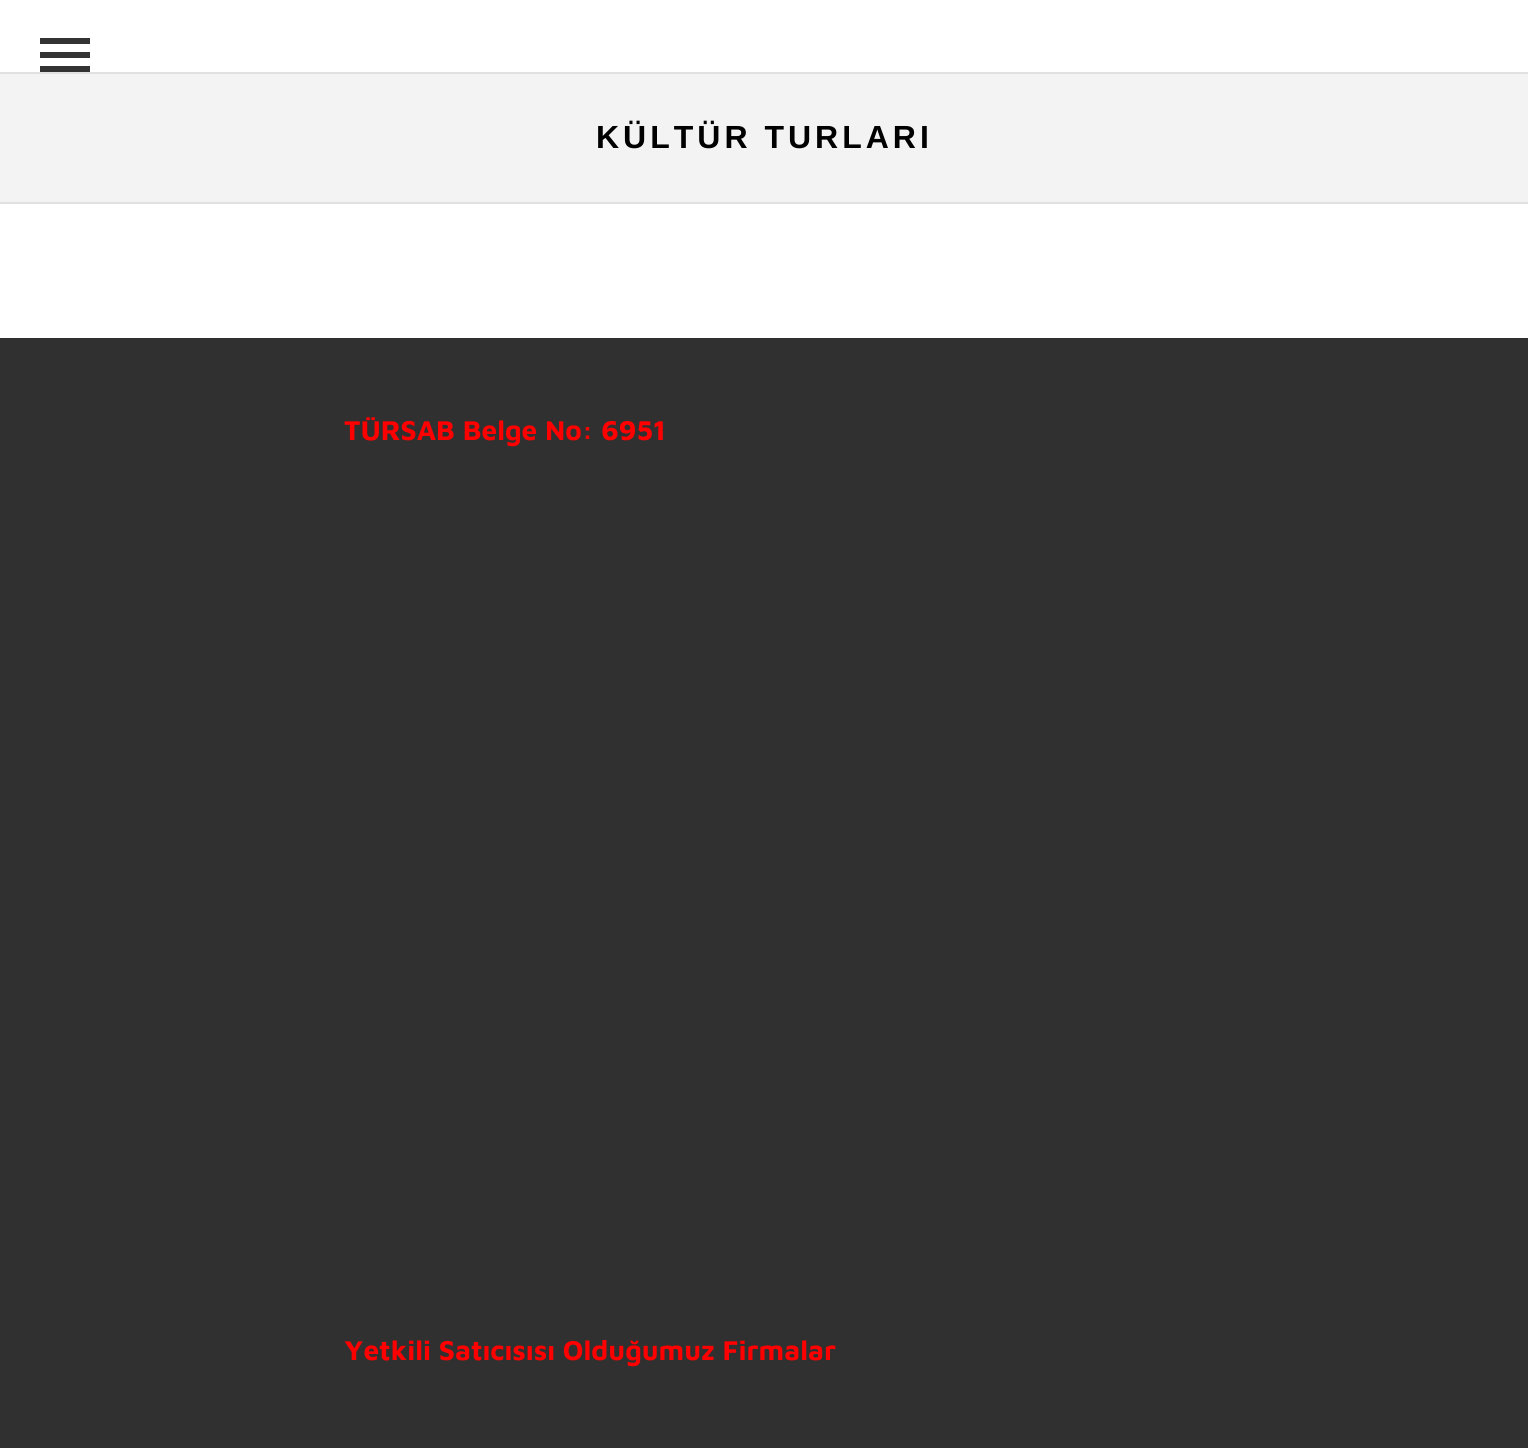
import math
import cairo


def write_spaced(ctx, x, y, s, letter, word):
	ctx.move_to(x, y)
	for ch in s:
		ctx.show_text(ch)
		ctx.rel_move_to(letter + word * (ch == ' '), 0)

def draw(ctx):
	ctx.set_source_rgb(1, 1, 1)
	ctx.paint()
	ctx.set_source_rgb(0.882, 0.882, 0.882)
	ctx.rectangle(0, 72, 1528, 2)
	ctx.fill()
	ctx.set_source_rgb(0.2, 0.2, 0.2)
	ctx.rectangle(40, 38, 50, 6)
	ctx.rectangle(40, 52, 50, 6)
	ctx.rectangle(40, 66, 50, 6)
	ctx.fill()
	ctx.set_source_rgb(0.953, 0.953, 0.953)
	ctx.rectangle(0, 74, 1528, 128)
	ctx.fill()
	ctx.set_source_rgb(0.882, 0.882, 0.882)
	ctx.rectangle(0, 202, 1528, 2)
	ctx.fill()
	ctx.select_font_face('Liberation Sans', cairo.FONT_SLANT_NORMAL, cairo.FONT_WEIGHT_BOLD)
	ctx.set_font_size(32)
	ctx.set_source_rgb(0, 0, 0)
	write_spaced(ctx, 596, 148, 'KÜLTÜR TURLARI', 4, 0)
	ctx.set_source_rgb(0.188, 0.188, 0.188)
	ctx.rectangle(0, 338, 1528, 1110)
	ctx.fill()
	ctx.select_font_face('Maven Pro', cairo.FONT_SLANT_NORMAL, cairo.FONT_WEIGHT_BOLD)
	ctx.set_font_size(28)
	ctx.set_source_rgb(1, 0, 0)
	ctx.move_to(344, 440)
	ctx.show_text('TÜRSAB Belge No: 6951')
	ctx.move_to(344, 1360)
	ctx.show_text('Yetkili Satıcısısı Olduğumuz Firmalar')


surface = cairo.ImageSurface(cairo.FORMAT_RGB24, 1528, 1448)
ctx = cairo.Context(surface)
options = cairo.FontOptions()
options.set_hint_metrics(cairo.HINT_METRICS_OFF)
options.set_hint_style(cairo.HINT_STYLE_NONE)
ctx.set_font_options(options)
ctx.set_miter_limit(4)
draw(ctx)
surface.write_to_png('image.png')
